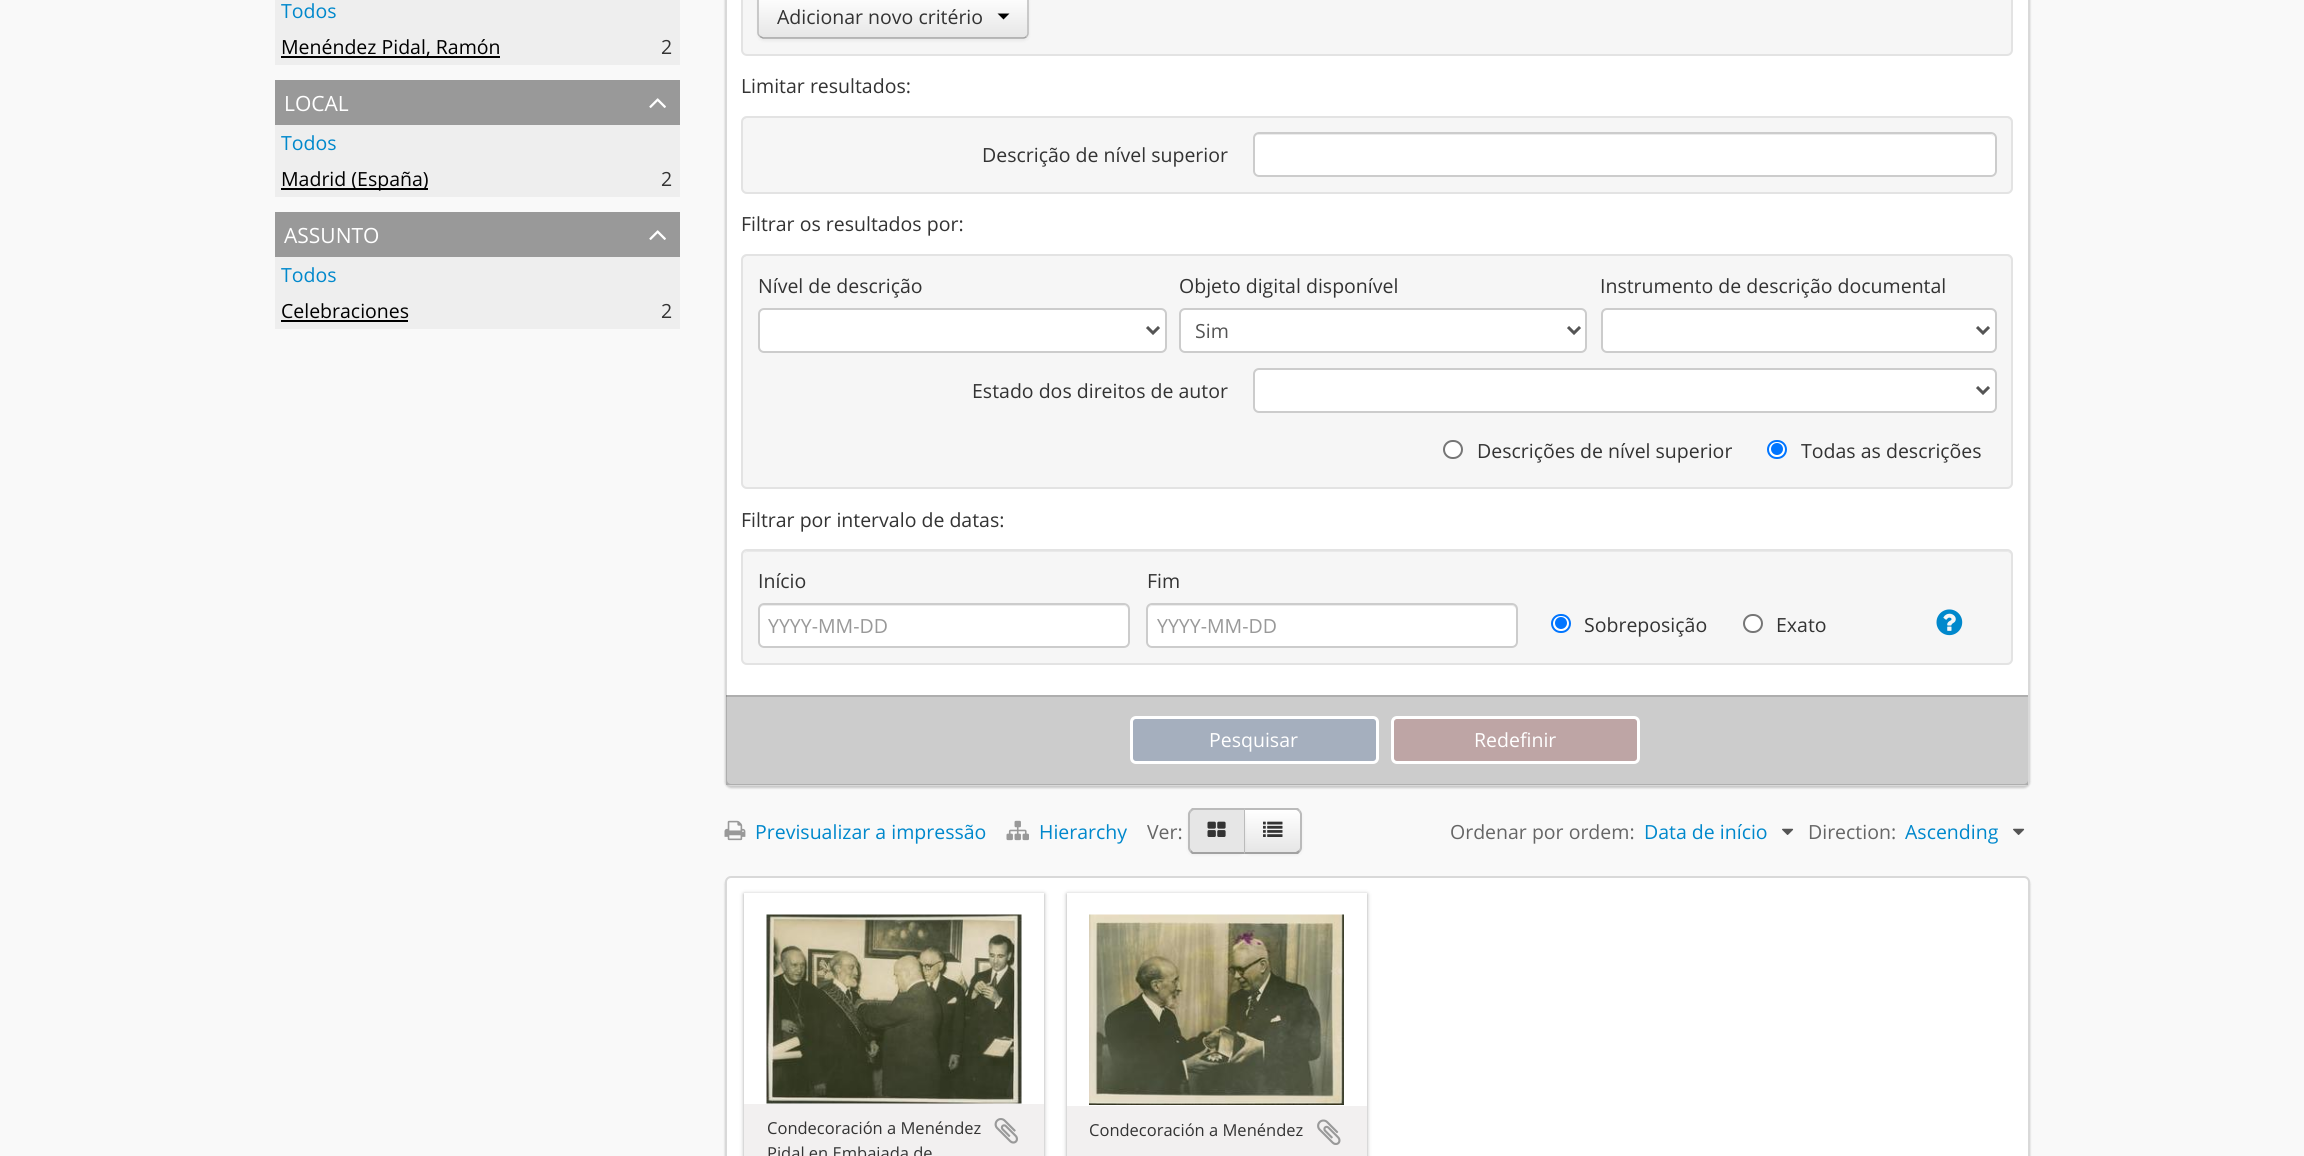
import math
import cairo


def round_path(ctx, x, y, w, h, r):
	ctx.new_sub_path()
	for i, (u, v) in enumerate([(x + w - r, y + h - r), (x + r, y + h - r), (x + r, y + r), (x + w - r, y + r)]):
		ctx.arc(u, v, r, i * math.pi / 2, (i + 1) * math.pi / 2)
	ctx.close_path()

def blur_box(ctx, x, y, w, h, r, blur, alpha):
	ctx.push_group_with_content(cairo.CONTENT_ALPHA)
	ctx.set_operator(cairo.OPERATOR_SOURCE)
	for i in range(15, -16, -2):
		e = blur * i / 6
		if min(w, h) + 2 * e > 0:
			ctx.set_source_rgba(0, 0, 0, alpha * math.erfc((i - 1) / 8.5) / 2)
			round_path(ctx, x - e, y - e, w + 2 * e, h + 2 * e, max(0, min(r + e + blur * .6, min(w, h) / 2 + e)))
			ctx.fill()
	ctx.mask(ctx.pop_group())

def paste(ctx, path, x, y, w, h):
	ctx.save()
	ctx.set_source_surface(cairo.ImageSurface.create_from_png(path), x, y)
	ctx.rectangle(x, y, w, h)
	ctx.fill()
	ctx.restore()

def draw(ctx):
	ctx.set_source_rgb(0.973, 0.973, 0.973)
	ctx.paint()
	ctx.set_source_rgb(0.933, 0.933, 0.933)
	ctx.rectangle(275, 0, 405, 65)
	ctx.fill()
	ctx.select_font_face('Open Sans')
	ctx.set_font_size(19.5)
	ctx.set_source_rgb(0, 0.533, 0.8)
	ctx.move_to(281, 18)
	ctx.show_text('Todos')
	ctx.set_source_rgb(0, 0, 0)
	ctx.rectangle(281, 56, 219, 2)
	ctx.fill()
	ctx.move_to(281, 54)
	ctx.show_text('Menéndez Pidal, Ramón')
	ctx.set_source_rgb(0.2, 0.2, 0.2)
	ctx.move_to(661, 54)
	ctx.show_text('2')
	ctx.set_source_rgb(0.6, 0.6, 0.6)
	ctx.rectangle(275, 80, 405, 45)
	ctx.fill()
	ctx.set_font_size(21)
	ctx.set_source_rgb(1, 1, 1)
	ctx.move_to(284, 111)
	ctx.show_text('LOCAL')
	paste(ctx, 'media/1.png', 649, 98, 17, 10)
	ctx.set_source_rgb(0.933, 0.933, 0.933)
	ctx.rectangle(275, 125, 405, 72)
	ctx.fill()
	ctx.set_font_size(19.5)
	ctx.set_source_rgb(0, 0.533, 0.8)
	ctx.move_to(281, 150)
	ctx.show_text('Todos')
	ctx.set_source_rgb(0, 0, 0)
	ctx.rectangle(281, 188, 147, 2)
	ctx.fill()
	ctx.move_to(281, 186)
	ctx.show_text('Madrid (España)')
	ctx.set_source_rgb(0.2, 0.2, 0.2)
	ctx.move_to(661, 186)
	ctx.show_text('2')
	ctx.set_source_rgb(0.6, 0.6, 0.6)
	ctx.rectangle(275, 212, 405, 45)
	ctx.fill()
	ctx.set_font_size(21)
	ctx.set_source_rgb(1, 1, 1)
	ctx.move_to(284, 243)
	ctx.show_text('ASSUNTO')
	paste(ctx, 'media/1.png', 649, 230, 17, 10)
	ctx.set_source_rgb(0.933, 0.933, 0.933)
	ctx.rectangle(275, 257, 405, 72)
	ctx.fill()
	ctx.set_font_size(19.5)
	ctx.set_source_rgb(0, 0.533, 0.8)
	ctx.move_to(281, 282)
	ctx.show_text('Todos')
	ctx.set_source_rgb(0, 0, 0)
	ctx.move_to(281, 318)
	ctx.show_text('Celebraciones')
	ctx.rectangle(281, 320, 127, 2)
	ctx.fill()
	ctx.set_source_rgb(0.2, 0.2, 0.2)
	ctx.move_to(661, 318)
	ctx.show_text('2')
	ctx.set_source_rgb(0, 0, 0)
	blur_box(ctx, 725, -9, 1305, 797, 6, 1, 0.2)
	ctx.set_source_rgb(1, 1, 1)
	round_path(ctx, 726, -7, 1303, 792, 5)
	ctx.fill_preserve()
	ctx.set_source_rgb(0.851, 0.851, 0.851)
	ctx.stroke()
	ctx.set_source_rgb(0.961, 0.961, 0.961)
	round_path(ctx, 742, -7, 1270, 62, 5)
	ctx.fill_preserve()
	ctx.set_source_rgb(0.89, 0.89, 0.89)
	ctx.stroke()
	ctx.set_source_rgb(0, 0, 0)
	blur_box(ctx, 758, -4, 271, 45, 6, 1.5, 0.05)
	ctx.set_source_rgb(0.961, 0.961, 0.961)
	round_path(ctx, 758, -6, 271, 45, 6)
	ctx.fill()
	ctx.save()
	round_path(ctx, 758, -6, 271, 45, 6)
	ctx.clip()
	gradient = cairo.LinearGradient(893, -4.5, 893, 38)
	gradient.add_color_stop_rgba(0, 1, 1, 1, 1)
	gradient.add_color_stop_rgba(1, 0.902, 0.902, 0.902, 1)
	ctx.set_source(gradient)
	ctx.rectangle(758, 0, 271, 38)
	ctx.fill()
	ctx.restore()
	ctx.new_path()
	ctx.move_to(1026.5, 36.5)
	ctx.curve_to(1025.5, 37.5, 1024.5, 38, 1023, 38)
	ctx.line_to(763, 38)
	ctx.line_to(760, 36.5)
	ctx.set_source_rgb(0.635, 0.635, 0.635)
	ctx.set_line_width(1.5)
	ctx.stroke()
	ctx.new_path()
	ctx.move_to(760, 36.5)
	ctx.curve_to(759, 35.5, 758, 34.5, 758, 33)
	ctx.line_to(758, 0)
	ctx.curve_to(758, -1.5, 759, -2.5, 760, -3.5)
	ctx.curve_to(761, -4.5, 762, -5, 763.5, -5)
	ctx.line_to(1023, -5)
	ctx.curve_to(1024.5, -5, 1025.5, -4.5, 1026.5, -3.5)
	ctx.curve_to(1027.5, -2.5, 1028, -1.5, 1028, 0)
	ctx.line_to(1028, 33)
	ctx.curve_to(1028, 34.5, 1027.5, 35.5, 1026.5, 36.5)
	ctx.set_source_rgb(0.733, 0.733, 0.733)
	ctx.stroke()
	ctx.set_source_rgb(0.2, 0.2, 0.2)
	ctx.move_to(777, 24)
	ctx.show_text('Adicionar novo critério')
	ctx.set_source_rgb(0, 0, 0)
	ctx.new_path()
	ctx.move_to(997.5, 13.5)
	ctx.line_to(1009.5, 13.5)
	ctx.line_to(1003.5, 19.5)
	ctx.close_path()
	ctx.fill()
	ctx.set_source_rgb(0.2, 0.2, 0.2)
	ctx.move_to(741, 93)
	ctx.show_text('Limitar resultados:')
	ctx.set_source_rgb(0.961, 0.961, 0.961)
	round_path(ctx, 741, 116, 1272, 78, 6)
	ctx.fill()
	ctx.set_source_rgb(0.914, 0.914, 0.914)
	ctx.new_path()
	ctx.move_to(747, 118)
	ctx.line_to(2007, 118)
	ctx.curve_to(2009, 118, 2012, 121, 2012, 123)
	ctx.line_to(2012, 122)
	ctx.curve_to(2012, 119, 2010, 117, 2007, 117)
	ctx.line_to(748, 117)
	ctx.curve_to(746, 117, 744, 118, 743, 120)
	ctx.curve_to(744, 119, 746, 118, 747, 118)
	ctx.close_path()
	ctx.fill()
	round_path(ctx, 742, 117, 1270, 76, 5)
	ctx.set_source_rgb(0.89, 0.89, 0.89)
	ctx.set_line_width(2)
	ctx.stroke()
	ctx.set_source_rgb(0.2, 0.2, 0.2)
	ctx.move_to(982, 162)
	ctx.show_text('Descrição de nível superior')
	ctx.set_source_rgb(1, 1, 1)
	round_path(ctx, 1253, 132, 744, 45, 6)
	ctx.fill()
	ctx.set_source_rgb(0.925, 0.925, 0.925)
	ctx.new_path()
	ctx.move_to(1258, 135)
	ctx.line_to(1990, 135)
	ctx.curve_to(1993, 135, 1995, 137, 1995, 140)
	ctx.curve_to(1995, 137, 1993, 134, 1990, 134)
	ctx.line_to(1259, 134)
	ctx.curve_to(1256, 134, 1254, 137, 1254, 140)
	ctx.curve_to(1254, 137, 1256, 135, 1258, 135)
	ctx.close_path()
	ctx.fill()
	round_path(ctx, 1254, 133, 742, 43, 5)
	ctx.set_source_rgb(0.8, 0.8, 0.8)
	ctx.stroke()
	ctx.set_source_rgb(0.2, 0.2, 0.2)
	ctx.move_to(741, 231)
	ctx.show_text('Filtrar os resultados por:')
	ctx.set_source_rgb(0.961, 0.961, 0.961)
	round_path(ctx, 741, 254, 1272, 235, 6)
	ctx.fill()
	ctx.set_source_rgb(0.914, 0.914, 0.914)
	ctx.new_path()
	ctx.move_to(747, 256)
	ctx.line_to(2007, 256)
	ctx.curve_to(2009, 256, 2012, 259, 2012, 261)
	ctx.line_to(2012, 260)
	ctx.curve_to(2012, 257, 2010, 255, 2007, 255)
	ctx.line_to(748, 255)
	ctx.curve_to(746, 255, 744, 256, 743, 258)
	ctx.curve_to(744, 257, 746, 256, 747, 256)
	ctx.close_path()
	ctx.fill()
	round_path(ctx, 742, 255, 1270, 233, 5)
	ctx.set_source_rgb(0.89, 0.89, 0.89)
	ctx.stroke()
	ctx.set_source_rgb(0.2, 0.2, 0.2)
	ctx.move_to(758, 293)
	ctx.show_text('Nível de descrição')
	ctx.set_source_rgb(1, 1, 1)
	round_path(ctx, 759, 309, 407, 43, 5)
	ctx.fill_preserve()
	ctx.set_source_rgb(0.8, 0.8, 0.8)
	ctx.stroke()
	ctx.new_path()
	ctx.move_to(1147, 327)
	ctx.line_to(1153, 333)
	ctx.line_to(1159, 327)
	ctx.set_source_rgb(0.333, 0.333, 0.333)
	ctx.set_line_width(3)
	ctx.stroke()
	ctx.set_source_rgb(0.2, 0.2, 0.2)
	ctx.move_to(1179, 293)
	ctx.show_text('Objeto digital disponível')
	ctx.set_source_rgb(1, 1, 1)
	round_path(ctx, 1180, 309, 406, 43, 5)
	ctx.fill_preserve()
	ctx.set_source_rgb(0.8, 0.8, 0.8)
	ctx.set_line_width(2)
	ctx.stroke()
	ctx.new_path()
	ctx.move_to(1568, 327)
	ctx.line_to(1574, 333)
	ctx.line_to(1580, 327)
	ctx.set_source_rgb(0.333, 0.333, 0.333)
	ctx.set_line_width(3)
	ctx.stroke()
	ctx.move_to(1195, 338)
	ctx.show_text('Sim')
	ctx.set_source_rgb(0.2, 0.2, 0.2)
	ctx.move_to(1600, 293)
	ctx.show_text('Instrumento de descrição documental')
	ctx.set_source_rgb(1, 1, 1)
	round_path(ctx, 1602, 309, 394, 43, 5)
	ctx.fill_preserve()
	ctx.set_source_rgb(0.8, 0.8, 0.8)
	ctx.set_line_width(2)
	ctx.stroke()
	ctx.new_path()
	ctx.move_to(1977, 327)
	ctx.line_to(1983, 333)
	ctx.line_to(1989, 327)
	ctx.set_source_rgb(0.333, 0.333, 0.333)
	ctx.set_line_width(3)
	ctx.stroke()
	ctx.set_source_rgb(0.2, 0.2, 0.2)
	ctx.move_to(972, 398)
	ctx.show_text('Estado dos direitos de autor')
	ctx.set_source_rgb(1, 1, 1)
	round_path(ctx, 1254, 369, 742, 43, 5)
	ctx.fill_preserve()
	ctx.set_source_rgb(0.8, 0.8, 0.8)
	ctx.set_line_width(2)
	ctx.stroke()
	ctx.new_path()
	ctx.move_to(1977, 387)
	ctx.line_to(1983, 393)
	ctx.line_to(1989, 387)
	ctx.set_source_rgb(0.333, 0.333, 0.333)
	ctx.set_line_width(3)
	ctx.stroke()
	ctx.set_source_rgb(1, 1, 1)
	round_path(ctx, 1444, 441, 18, 17, 8.5)
	ctx.fill_preserve()
	ctx.set_source_rgb(0.463, 0.463, 0.463)
	ctx.set_line_width(2)
	ctx.stroke()
	ctx.set_source_rgb(0.2, 0.2, 0.2)
	ctx.move_to(1477, 458)
	ctx.show_text('Descrições de nível superior')
	ctx.set_source_rgb(1, 1, 1)
	round_path(ctx, 1768, 441, 18, 17, 8.5)
	ctx.fill_preserve()
	ctx.set_source_rgb(0, 0.459, 1)
	ctx.stroke()
	ctx.arc(1777, 449, 6, 0, 2 * math.pi)
	ctx.fill()
	ctx.set_source_rgb(0.2, 0.2, 0.2)
	ctx.move_to(1801, 458)
	ctx.show_text('Todas as descrições')
	ctx.move_to(741, 527)
	ctx.show_text('Filtrar por intervalo de datas:')
	ctx.set_source_rgb(0.961, 0.961, 0.961)
	round_path(ctx, 741, 549, 1272, 116, 6)
	ctx.fill()
	ctx.set_source_rgb(0.914, 0.914, 0.914)
	ctx.new_path()
	ctx.move_to(747, 552)
	ctx.line_to(2007, 552)
	ctx.curve_to(2009, 552, 2012, 554, 2012, 556)
	ctx.curve_to(2012, 553, 2010, 551, 2007, 551)
	ctx.line_to(748, 551)
	ctx.curve_to(746, 551, 745, 552, 744, 553)
	ctx.close_path()
	ctx.fill()
	round_path(ctx, 742, 550, 1270, 114, 5)
	ctx.set_source_rgb(0.89, 0.89, 0.89)
	ctx.stroke()
	ctx.set_source_rgb(0.2, 0.2, 0.2)
	ctx.move_to(758, 588)
	ctx.show_text('Início')
	ctx.set_source_rgb(1, 1, 1)
	round_path(ctx, 758, 603, 372, 45, 6)
	ctx.fill()
	ctx.set_source_rgb(0.925, 0.925, 0.925)
	ctx.new_path()
	ctx.move_to(764, 606)
	ctx.line_to(1124, 606)
	ctx.curve_to(1126, 606, 1128, 608, 1128, 610)
	ctx.curve_to(1128, 607, 1126, 605, 1123, 605)
	ctx.line_to(764, 605)
	ctx.curve_to(761, 605, 759, 607, 759, 610)
	ctx.curve_to(759, 608, 761, 606, 764, 606)
	ctx.close_path()
	ctx.fill()
	round_path(ctx, 759, 604, 370, 43, 5)
	ctx.set_source_rgb(0.8, 0.8, 0.8)
	ctx.stroke()
	ctx.set_source_rgb(0.6, 0.6, 0.6)
	ctx.move_to(768, 633)
	ctx.show_text('YYYY-MM-DD')
	ctx.set_source_rgb(0.2, 0.2, 0.2)
	ctx.move_to(1147, 588)
	ctx.show_text('Fim')
	ctx.set_source_rgb(1, 1, 1)
	round_path(ctx, 1146, 603, 372, 45, 6)
	ctx.fill()
	ctx.set_source_rgb(0.925, 0.925, 0.925)
	ctx.new_path()
	ctx.move_to(1152, 606)
	ctx.line_to(1512, 606)
	ctx.curve_to(1514, 606, 1516, 608, 1516, 610)
	ctx.line_to(1516, 645)
	ctx.curve_to(1517, 644, 1517, 643, 1517, 642)
	ctx.line_to(1517, 610)
	ctx.curve_to(1517, 607, 1515, 605, 1512, 605)
	ctx.line_to(1153, 605)
	ctx.curve_to(1150, 605, 1148, 607, 1148, 610)
	ctx.curve_to(1148, 608, 1150, 606, 1152, 606)
	ctx.close_path()
	ctx.fill()
	round_path(ctx, 1147, 604, 370, 43, 5)
	ctx.set_source_rgb(0.8, 0.8, 0.8)
	ctx.stroke()
	ctx.set_source_rgb(0.6, 0.6, 0.6)
	ctx.move_to(1157, 633)
	ctx.show_text('YYYY-MM-DD')
	ctx.set_source_rgb(1, 1, 1)
	round_path(ctx, 1552, 615, 18, 17, 8.5)
	ctx.fill_preserve()
	ctx.set_source_rgb(0, 0.459, 1)
	ctx.stroke()
	ctx.arc(1561, 623, 6, 0, 2 * math.pi)
	ctx.fill()
	ctx.set_source_rgb(0.2, 0.2, 0.2)
	ctx.move_to(1584, 632)
	ctx.show_text('Sobreposição')
	ctx.set_source_rgb(1, 1, 1)
	round_path(ctx, 1744, 615, 18, 17, 8.5)
	ctx.fill_preserve()
	ctx.set_source_rgb(0.463, 0.463, 0.463)
	ctx.stroke()
	ctx.set_source_rgb(0.2, 0.2, 0.2)
	ctx.move_to(1776, 632)
	ctx.show_text('Exato')
	paste(ctx, 'media/2.png', 1936, 609, 27, 27)
	ctx.set_source_rgba(0, 0, 0, 0.2)
	ctx.rectangle(726, 695, 1302, 90)
	ctx.fill()
	ctx.set_source_rgba(0, 0, 0, 0.15)
	ctx.rectangle(726, 695, 1302, 2)
	ctx.fill()
	ctx.set_source_rgb(0.647, 0.686, 0.745)
	round_path(ctx, 1131.5, 717.5, 246, 45, 4.5)
	ctx.fill_preserve()
	ctx.set_source_rgb(1, 1, 1)
	ctx.set_line_width(3)
	ctx.stroke()
	ctx.move_to(1209, 747)
	ctx.show_text('Pesquisar')
	ctx.set_source_rgb(0.745, 0.647, 0.647)
	round_path(ctx, 1392.5, 717.5, 246, 45, 4.5)
	ctx.fill_preserve()
	ctx.set_source_rgb(1, 1, 1)
	ctx.stroke()
	ctx.move_to(1474, 747)
	ctx.show_text('Redefinir')
	paste(ctx, 'media/3.png', 724, 820, 22, 21)
	ctx.set_source_rgb(0, 0.533, 0.8)
	ctx.move_to(755, 839)
	ctx.show_text('Previsualizar a impressão')
	paste(ctx, 'media/4.png', 1006, 820, 23, 21)
	ctx.move_to(1039, 839)
	ctx.show_text('Hierarchy')
	ctx.set_source_rgb(0.4, 0.4, 0.4)
	ctx.move_to(1147, 839)
	ctx.show_text('Ver:')
	ctx.set_source_rgb(0, 0, 0)
	blur_box(ctx, 1244, 810, 58, 45, 6, 1.5, 0.05)
	ctx.set_source_rgb(0.961, 0.961, 0.961)
	ctx.new_path()
	ctx.move_to(1244, 809)
	ctx.line_to(1296, 809)
	ctx.curve_to(1299.5, 809, 1302, 811.5, 1302, 815)
	ctx.line_to(1302, 848)
	ctx.curve_to(1302, 851.5, 1299.5, 854, 1296, 854)
	ctx.line_to(1244, 854)
	ctx.close_path()
	ctx.fill()
	ctx.save()
	ctx.new_path()
	ctx.move_to(1244, 809)
	ctx.line_to(1296, 809)
	ctx.curve_to(1299.5, 809, 1302, 811.5, 1302, 815)
	ctx.line_to(1302, 848)
	ctx.curve_to(1302, 851.5, 1299.5, 854, 1296, 854)
	ctx.line_to(1244, 854)
	ctx.close_path()
	ctx.clip()
	gradient = cairo.LinearGradient(1273, 810, 1273, 852)
	gradient.add_color_stop_rgba(0, 1, 1, 1, 1)
	gradient.add_color_stop_rgba(1, 0.902, 0.902, 0.902, 1)
	ctx.set_source(gradient)
	ctx.rectangle(1245, 810, 57, 42)
	ctx.fill()
	ctx.restore()
	ctx.set_source_rgba(1, 1, 1, 0.2)
	ctx.new_path()
	ctx.move_to(1245, 812)
	ctx.line_to(1279, 812)
	ctx.curve_to(1301, 812, 1300, 808, 1300, 827)
	ctx.line_to(1300, 850)
	ctx.curve_to(1301, 849, 1301, 848, 1301, 847)
	ctx.line_to(1301, 815)
	ctx.curve_to(1301, 812, 1299, 810, 1296, 810)
	ctx.line_to(1245, 810)
	ctx.close_path()
	ctx.fill()
	ctx.set_source_rgb(0.733, 0.733, 0.733)
	ctx.new_path()
	ctx.move_to(1245, 810)
	ctx.line_to(1244, 808)
	ctx.line_to(1298, 808)
	ctx.line_to(1300, 810)
	ctx.line_to(1299, 812)
	ctx.curve_to(1298, 811, 1297, 810, 1296, 810)
	ctx.close_path()
	ctx.fill()
	ctx.new_path()
	ctx.move_to(1302, 848)
	ctx.line_to(1302, 814)
	ctx.curve_to(1302, 813, 1301, 811, 1300, 810)
	ctx.line_to(1299, 812)
	ctx.line_to(1300, 814)
	ctx.line_to(1300, 848)
	ctx.line_to(1299, 850)
	ctx.line_to(1300, 852)
	ctx.curve_to(1301, 851, 1302, 849, 1302, 848)
	ctx.close_path()
	ctx.fill()
	ctx.set_source_rgb(0.635, 0.635, 0.635)
	ctx.new_path()
	ctx.move_to(1244, 854)
	ctx.line_to(1245, 852)
	ctx.line_to(1296, 852)
	ctx.line_to(1299, 850)
	ctx.line_to(1300, 852)
	ctx.line_to(1298, 854)
	ctx.close_path()
	ctx.fill()
	ctx.set_source_rgb(0, 0, 0)
	blur_box(ctx, 1188, 810, 57, 45, 6, 1.5, 0.05)
	ctx.set_source_rgb(0.902, 0.902, 0.902)
	ctx.new_path()
	ctx.move_to(1194, 809)
	ctx.line_to(1245, 809)
	ctx.line_to(1245, 854)
	ctx.line_to(1194, 854)
	ctx.curve_to(1190.5, 854, 1188, 851.5, 1188, 848)
	ctx.line_to(1188, 815)
	ctx.curve_to(1188, 811.5, 1190.5, 809, 1194, 809)
	ctx.close_path()
	ctx.fill()
	ctx.set_source_rgb(0.733, 0.733, 0.733)
	ctx.new_path()
	ctx.move_to(1194, 810)
	ctx.curve_to(1193, 810, 1192, 811, 1191, 812)
	ctx.line_to(1190, 810)
	ctx.line_to(1192, 808)
	ctx.line_to(1245, 808)
	ctx.line_to(1244, 810)
	ctx.close_path()
	ctx.fill()
	ctx.new_path()
	ctx.move_to(1245, 808)
	ctx.line_to(1244, 810)
	ctx.line_to(1244, 852)
	ctx.line_to(1245, 854)
	ctx.close_path()
	ctx.fill()
	ctx.set_source_rgb(0.635, 0.635, 0.635)
	ctx.new_path()
	ctx.move_to(1245, 854)
	ctx.line_to(1192, 854)
	ctx.line_to(1190, 852)
	ctx.line_to(1191, 850)
	ctx.line_to(1193, 852)
	ctx.line_to(1244, 852)
	ctx.close_path()
	ctx.fill()
	ctx.set_source_rgb(0.733, 0.733, 0.733)
	ctx.new_path()
	ctx.move_to(1188, 814)
	ctx.line_to(1188, 848)
	ctx.curve_to(1188, 849, 1189, 851, 1190, 852)
	ctx.line_to(1191, 850)
	ctx.line_to(1190, 848)
	ctx.line_to(1190, 814)
	ctx.line_to(1191, 812)
	ctx.line_to(1190, 810)
	ctx.curve_to(1189, 811, 1188, 813, 1188, 814)
	ctx.close_path()
	ctx.fill()
	paste(ctx, 'media/5.png', 1207, 821, 19, 16)
	paste(ctx, 'media/6.png', 1263, 821, 20, 16)
	ctx.set_source_rgb(0.4, 0.4, 0.4)
	ctx.move_to(1450, 839)
	ctx.show_text('Ordenar por ordem:')
	ctx.set_source_rgb(0, 0.533, 0.8)
	ctx.move_to(1644, 839)
	ctx.show_text('Data de início')
	paste(ctx, 'media/7.png', 1782, 828, 12, 7)
	ctx.set_source_rgb(0.4, 0.4, 0.4)
	ctx.move_to(1808, 839)
	ctx.show_text('Direction:')
	ctx.set_source_rgb(0, 0.533, 0.8)
	ctx.move_to(1905, 839)
	ctx.show_text('Ascending')
	paste(ctx, 'media/7.png', 2013, 828, 12, 7)
	ctx.set_source_rgb(0, 0, 0)
	blur_box(ctx, 725, 878, 1305, 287, 6, 1, 0.2)
	ctx.set_source_rgb(1, 1, 1)
	round_path(ctx, 726, 877, 1303, 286, 5)
	ctx.fill_preserve()
	ctx.set_source_rgb(0.851, 0.851, 0.851)
	ctx.set_line_width(2)
	ctx.stroke()
	ctx.save()
	ctx.set_fill_rule(cairo.FILL_RULE_EVEN_ODD)
	ctx.new_path()
	ctx.move_to(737, 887)
	ctx.line_to(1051, 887)
	ctx.line_to(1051, 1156)
	ctx.line_to(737, 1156)
	ctx.close_path()
	ctx.move_to(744, 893)
	ctx.line_to(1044, 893)
	ctx.line_to(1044, 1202)
	ctx.line_to(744, 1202)
	ctx.close_path()
	ctx.clip()
	ctx.set_source_rgb(0.098, 0.098, 0.098)
	blur_box(ctx, 744, 894, 300, 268, 0, 2, 0.4)
	ctx.restore()
	paste(ctx, 'media/8.png', 766, 914, 256, 190)
	ctx.set_source_rgb(0.949, 0.941, 0.941)
	ctx.rectangle(744, 1104, 300, 52)
	ctx.fill()
	ctx.set_font_size(16.5)
	ctx.set_source_rgb(0.2, 0.2, 0.2)
	ctx.move_to(767, 1134)
	ctx.show_text('Condecoración a Menéndez')
	paste(ctx, 'media/9.png', 994, 1118, 24, 26)
	ctx.move_to(767, 1159)
	ctx.show_text('Pidal en Embajada de')
	ctx.set_source_rgb(0.098, 0.098, 0.098)
	blur_box(ctx, 1067, 894, 300, 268, 0, 2, 0.4)
	ctx.set_source_rgb(1, 1, 1)
	ctx.rectangle(1067, 893, 300, 213)
	ctx.fill()
	paste(ctx, 'media/10.png', 1089, 914, 255, 191)
	ctx.set_source_rgb(0.949, 0.941, 0.941)
	ctx.rectangle(1067, 1106, 300, 50)
	ctx.fill()
	ctx.set_source_rgb(0.2, 0.2, 0.2)
	ctx.move_to(1089, 1136)
	ctx.show_text('Condecoración a Menéndez')
	paste(ctx, 'media/11.png', 1317, 1119, 24, 26)


surface = cairo.ImageSurface(cairo.FORMAT_RGB24, 2304, 1156)
ctx = cairo.Context(surface)
options = cairo.FontOptions()
options.set_hint_metrics(cairo.HINT_METRICS_OFF)
options.set_hint_style(cairo.HINT_STYLE_NONE)
ctx.set_font_options(options)
ctx.set_miter_limit(4)
draw(ctx)
surface.write_to_png('image.png')
